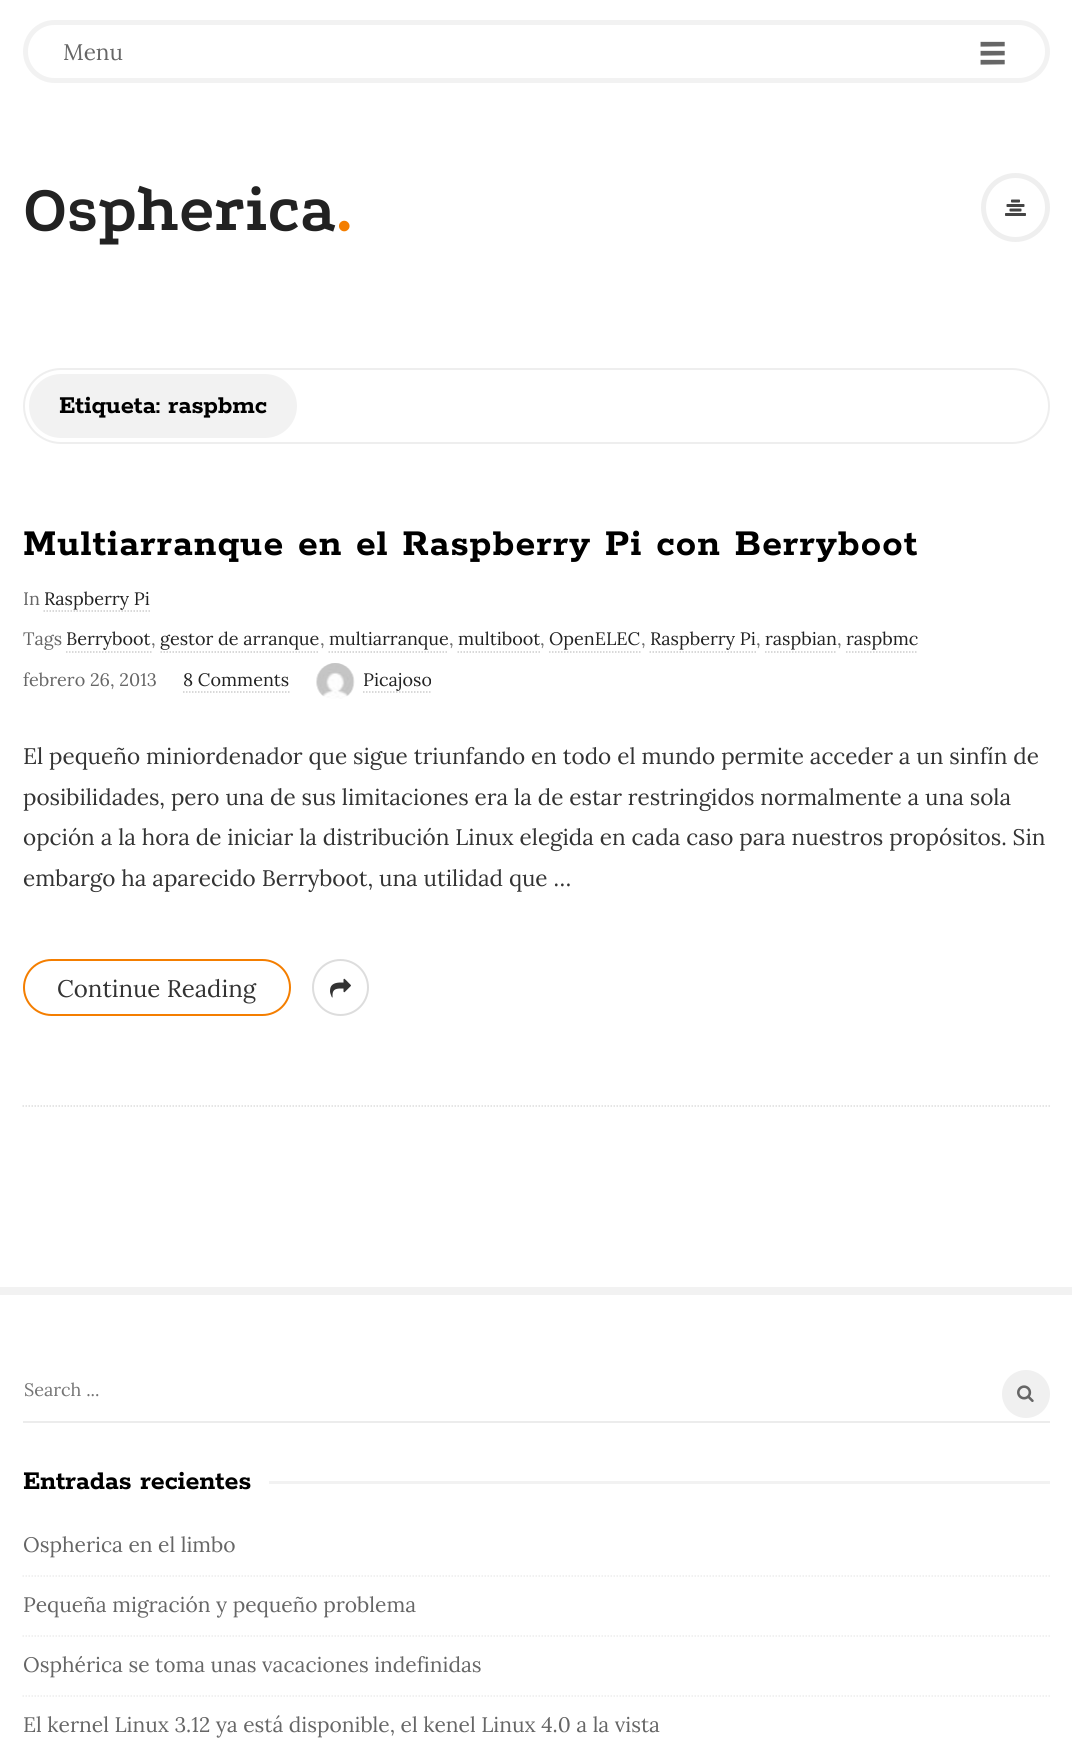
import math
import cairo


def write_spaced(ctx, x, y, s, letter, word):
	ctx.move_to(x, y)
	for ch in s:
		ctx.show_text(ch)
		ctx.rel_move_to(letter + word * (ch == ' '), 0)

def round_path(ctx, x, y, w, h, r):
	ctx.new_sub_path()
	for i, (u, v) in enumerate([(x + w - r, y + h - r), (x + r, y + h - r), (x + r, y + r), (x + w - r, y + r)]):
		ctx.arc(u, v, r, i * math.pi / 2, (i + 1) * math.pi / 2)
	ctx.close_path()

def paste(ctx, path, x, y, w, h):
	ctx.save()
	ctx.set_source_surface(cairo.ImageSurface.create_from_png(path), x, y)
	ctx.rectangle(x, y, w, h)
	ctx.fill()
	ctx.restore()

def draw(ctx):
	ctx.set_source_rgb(1, 1, 1)
	ctx.paint()
	round_path(ctx, 25.5, 22.5, 1022, 58, 29)
	ctx.set_source_rgb(0.949, 0.949, 0.949)
	ctx.set_line_width(5)
	ctx.stroke()
	ctx.select_font_face('Lora')
	ctx.set_font_size(22.5)
	ctx.set_source_rgb(0.4, 0.4, 0.4)
	ctx.move_to(63, 60)
	ctx.show_text('Menu')
	ctx.set_font_size(68)
	for x, y, s in [
		(976, 66, '-'),
		(976, 75, '-'),
		(976, 84, '-'),
	]:
		ctx.move_to(x, y)
		ctx.show_text(s)
	ctx.select_font_face('Podkova', cairo.FONT_SLANT_NORMAL, cairo.FONT_WEIGHT_BOLD)
	ctx.set_font_size(66)
	ctx.set_source_rgb(0.133, 0.133, 0.133)
	ctx.move_to(23, 230)
	ctx.show_text('Ospherica')
	ctx.set_source_rgb(0.957, 0.494, 0)
	ctx.move_to(336, 230)
	ctx.show_text('.')
	ctx.new_path()
	ctx.arc(1015.5, 207.5, 32, 0, 2 * math.pi)
	ctx.set_source_rgb(0.937, 0.937, 0.937)
	ctx.stroke()
	paste(ctx, 'media/1.png', 1005, 199, 21, 17)
	round_path(ctx, 24, 369, 1025, 74, 37)
	ctx.set_source_rgb(0.933, 0.933, 0.933)
	ctx.set_line_width(2)
	ctx.stroke()
	ctx.set_source_rgb(0.949, 0.949, 0.949)
	round_path(ctx, 29, 374, 268, 64, 32)
	ctx.fill()
	ctx.select_font_face('Rokkitt', cairo.FONT_SLANT_NORMAL, cairo.FONT_WEIGHT_BOLD)
	ctx.set_font_size(27)
	ctx.set_source_rgb(0, 0, 0)
	ctx.move_to(59, 413)
	ctx.show_text('Etiqueta: raspbmc')
	ctx.new_path()
	ctx.move_to(22.5, 1106)
	ctx.line_to(1050, 1106)
	ctx.set_source_rgb(0.867, 0.867, 0.867)
	ctx.set_line_width(1.5)
	ctx.set_dash([1.5, 1.5])
	ctx.stroke()
	ctx.set_font_size(40.5)
	ctx.set_source_rgb(0, 0, 0)
	write_spaced(ctx, 23, 555, 'Multiarranque en el Raspberry Pi con Berryboot', 1.2, 0)
	ctx.select_font_face('Lora')
	ctx.set_font_size(18)
	ctx.set_source_rgb(0.4, 0.4, 0.4)
	ctx.move_to(23, 605)
	ctx.show_text('In')
	ctx.set_source_rgb(0.133, 0.133, 0.133)
	ctx.move_to(44, 605)
	ctx.show_text('Raspberry Pi')
	ctx.new_path()
	ctx.move_to(43.5, 611)
	ctx.line_to(150, 611)
	ctx.set_source_rgb(0.8, 0.8, 0.8)
	ctx.stroke()
	ctx.set_source_rgb(0.4, 0.4, 0.4)
	ctx.move_to(23, 645)
	ctx.show_text('Tags')
	ctx.set_source_rgb(0.133, 0.133, 0.133)
	ctx.move_to(66, 645)
	ctx.show_text('Berryboot')
	ctx.new_path()
	ctx.move_to(66, 652)
	ctx.line_to(151.5, 652)
	ctx.set_source_rgb(0.8, 0.8, 0.8)
	ctx.stroke()
	ctx.set_source_rgb(0.4, 0.4, 0.4)
	ctx.move_to(151, 645)
	ctx.show_text(',')
	ctx.set_source_rgb(0.133, 0.133, 0.133)
	ctx.move_to(160, 645)
	ctx.show_text('gestor de arranque')
	ctx.new_path()
	ctx.move_to(160.5, 652)
	ctx.line_to(319.5, 652)
	ctx.set_source_rgb(0.8, 0.8, 0.8)
	ctx.stroke()
	ctx.set_source_rgb(0.4, 0.4, 0.4)
	ctx.move_to(320, 645)
	ctx.show_text(',')
	ctx.set_source_rgb(0.133, 0.133, 0.133)
	ctx.move_to(329, 645)
	ctx.show_text('multiarranque')
	ctx.new_path()
	ctx.move_to(328.5, 652)
	ctx.line_to(448.5, 652)
	ctx.set_source_rgb(0.8, 0.8, 0.8)
	ctx.stroke()
	ctx.set_source_rgb(0.4, 0.4, 0.4)
	ctx.move_to(449, 645)
	ctx.show_text(',')
	ctx.set_source_rgb(0.133, 0.133, 0.133)
	ctx.move_to(458, 645)
	ctx.show_text('multiboot')
	ctx.new_path()
	ctx.move_to(457.5, 652)
	ctx.line_to(540, 652)
	ctx.set_source_rgb(0.8, 0.8, 0.8)
	ctx.stroke()
	ctx.set_source_rgb(0.4, 0.4, 0.4)
	ctx.move_to(540, 645)
	ctx.show_text(',')
	ctx.set_source_rgb(0.133, 0.133, 0.133)
	ctx.move_to(549, 645)
	ctx.show_text('OpenELEC')
	ctx.new_path()
	ctx.move_to(549, 652)
	ctx.line_to(640.5, 652)
	ctx.set_source_rgb(0.8, 0.8, 0.8)
	ctx.stroke()
	ctx.set_source_rgb(0.4, 0.4, 0.4)
	ctx.move_to(641, 645)
	ctx.show_text(',')
	ctx.set_source_rgb(0.133, 0.133, 0.133)
	ctx.move_to(650, 645)
	ctx.show_text('Raspberry Pi')
	ctx.new_path()
	ctx.move_to(649.5, 652)
	ctx.line_to(756, 652)
	ctx.set_source_rgb(0.8, 0.8, 0.8)
	ctx.stroke()
	ctx.set_source_rgb(0.4, 0.4, 0.4)
	ctx.move_to(756, 645)
	ctx.show_text(',')
	ctx.set_source_rgb(0.133, 0.133, 0.133)
	ctx.move_to(765, 645)
	ctx.show_text('raspbian')
	ctx.new_path()
	ctx.move_to(765, 652)
	ctx.line_to(837, 652)
	ctx.set_source_rgb(0.8, 0.8, 0.8)
	ctx.stroke()
	ctx.set_source_rgb(0.4, 0.4, 0.4)
	ctx.move_to(837, 645)
	ctx.show_text(',')
	ctx.set_source_rgb(0.133, 0.133, 0.133)
	ctx.move_to(846, 645)
	ctx.show_text('raspbmc')
	ctx.new_path()
	ctx.move_to(846, 652)
	ctx.line_to(918, 652)
	ctx.set_source_rgb(0.8, 0.8, 0.8)
	ctx.stroke()
	ctx.set_source_rgb(0.4, 0.4, 0.4)
	ctx.move_to(23, 686)
	ctx.show_text('febrero 26, 2013')
	ctx.set_source_rgb(0.133, 0.133, 0.133)
	ctx.move_to(183, 686)
	ctx.show_text('8 Comments')
	ctx.new_path()
	ctx.move_to(183, 692)
	ctx.line_to(289.5, 692)
	ctx.set_source_rgb(0.8, 0.8, 0.8)
	ctx.stroke()
	paste(ctx, 'media/2.png', 316, 663, 39, 36)
	ctx.set_source_rgb(0.133, 0.133, 0.133)
	ctx.move_to(363, 686)
	ctx.show_text('Picajoso')
	ctx.new_path()
	ctx.move_to(363, 692)
	ctx.line_to(432, 692)
	ctx.set_source_rgb(0.8, 0.8, 0.8)
	ctx.stroke()
	ctx.set_font_size(22.5)
	ctx.set_source_rgb(0.2, 0.2, 0.2)
	for x, y, s in [
		(23, 764, 'El pequeño miniordenador que sigue triunfando en todo el mundo permite acceder a un sinfín de'),
		(23, 805, 'posibilidades, pero una de sus limitaciones era la de estar restringidos normalmente a una sola'),
		(23, 845, 'opción a la hora de iniciar la distribución Linux elegida en cada caso para nuestros propósitos. Sin'),
		(23, 886, 'embargo ha aparecido Berryboot, una utilidad que …'),
	]:
		ctx.move_to(x, y)
		ctx.show_text(s)
	round_path(ctx, 24, 960, 266, 55, 27.5)
	ctx.set_source_rgb(0.957, 0.494, 0)
	ctx.set_line_width(2)
	ctx.set_dash([])
	ctx.stroke()
	ctx.set_font_size(24)
	ctx.set_source_rgb(0.2, 0.2, 0.2)
	ctx.move_to(57, 997)
	ctx.show_text('Continue Reading')
	ctx.new_path()
	ctx.arc(340.5, 987.5, 27.5, 0, 2 * math.pi)
	ctx.set_source_rgb(0.867, 0.867, 0.867)
	ctx.stroke()
	paste(ctx, 'media/3.png', 330, 978, 21, 20)
	ctx.set_source_rgb(0.949, 0.949, 0.949)
	ctx.rectangle(0, 1287, 1072, 8)
	ctx.fill()
	ctx.set_source_rgb(0.925, 0.925, 0.925)
	ctx.rectangle(23, 1421, 1027, 2)
	ctx.fill()
	ctx.set_font_size(18)
	ctx.set_source_rgb(0.459, 0.459, 0.459)
	ctx.move_to(24, 1396)
	ctx.show_text('Search ...')
	ctx.set_source_rgb(0.941, 0.941, 0.941)
	ctx.new_path()
	ctx.arc(1026, 1394, 24, 0, 2 * math.pi)
	ctx.fill()
	paste(ctx, 'media/4.png', 1017, 1385, 17, 17)
	ctx.select_font_face('Rokkitt', cairo.FONT_SLANT_NORMAL, cairo.FONT_WEIGHT_BOLD)
	ctx.set_font_size(28.5)
	ctx.set_source_rgb(0, 0, 0)
	ctx.move_to(23, 1489)
	ctx.show_text('Entradas recientes')
	ctx.set_source_rgb(0.949, 0.949, 0.949)
	ctx.rectangle(269, 1481, 781, 3)
	ctx.fill()
	ctx.new_path()
	ctx.move_to(22.5, 1576)
	ctx.line_to(1050, 1576)
	ctx.set_source_rgb(0.925, 0.925, 0.925)
	ctx.set_line_width(1.5)
	ctx.set_dash([1.5, 1.5])
	ctx.stroke()
	ctx.select_font_face('Lora')
	ctx.set_font_size(21)
	ctx.set_source_rgb(0.4, 0.4, 0.4)
	ctx.move_to(23, 1552)
	ctx.show_text('Ospherica en el limbo')
	ctx.new_path()
	ctx.move_to(22.5, 1636)
	ctx.line_to(1050, 1636)
	ctx.set_source_rgb(0.925, 0.925, 0.925)
	ctx.stroke()
	ctx.set_source_rgb(0.4, 0.4, 0.4)
	ctx.move_to(23, 1612)
	ctx.show_text('Pequeña migración y pequeño problema')
	ctx.new_path()
	ctx.move_to(22.5, 1696)
	ctx.line_to(1050, 1696)
	ctx.set_source_rgb(0.925, 0.925, 0.925)
	ctx.stroke()
	ctx.set_source_rgb(0.4, 0.4, 0.4)
	ctx.move_to(23, 1672)
	ctx.show_text('Osphérica se toma unas vacaciones indefinidas')
	ctx.move_to(23, 1732)
	ctx.show_text('El kernel Linux 3.12 ya está disponible, el kenel Linux 4.0 a la vista')


surface = cairo.ImageSurface(cairo.FORMAT_RGB24, 1072, 1744)
ctx = cairo.Context(surface)
options = cairo.FontOptions()
options.set_hint_metrics(cairo.HINT_METRICS_OFF)
options.set_hint_style(cairo.HINT_STYLE_NONE)
ctx.set_font_options(options)
ctx.set_miter_limit(4)
draw(ctx)
surface.write_to_png('image.png')
